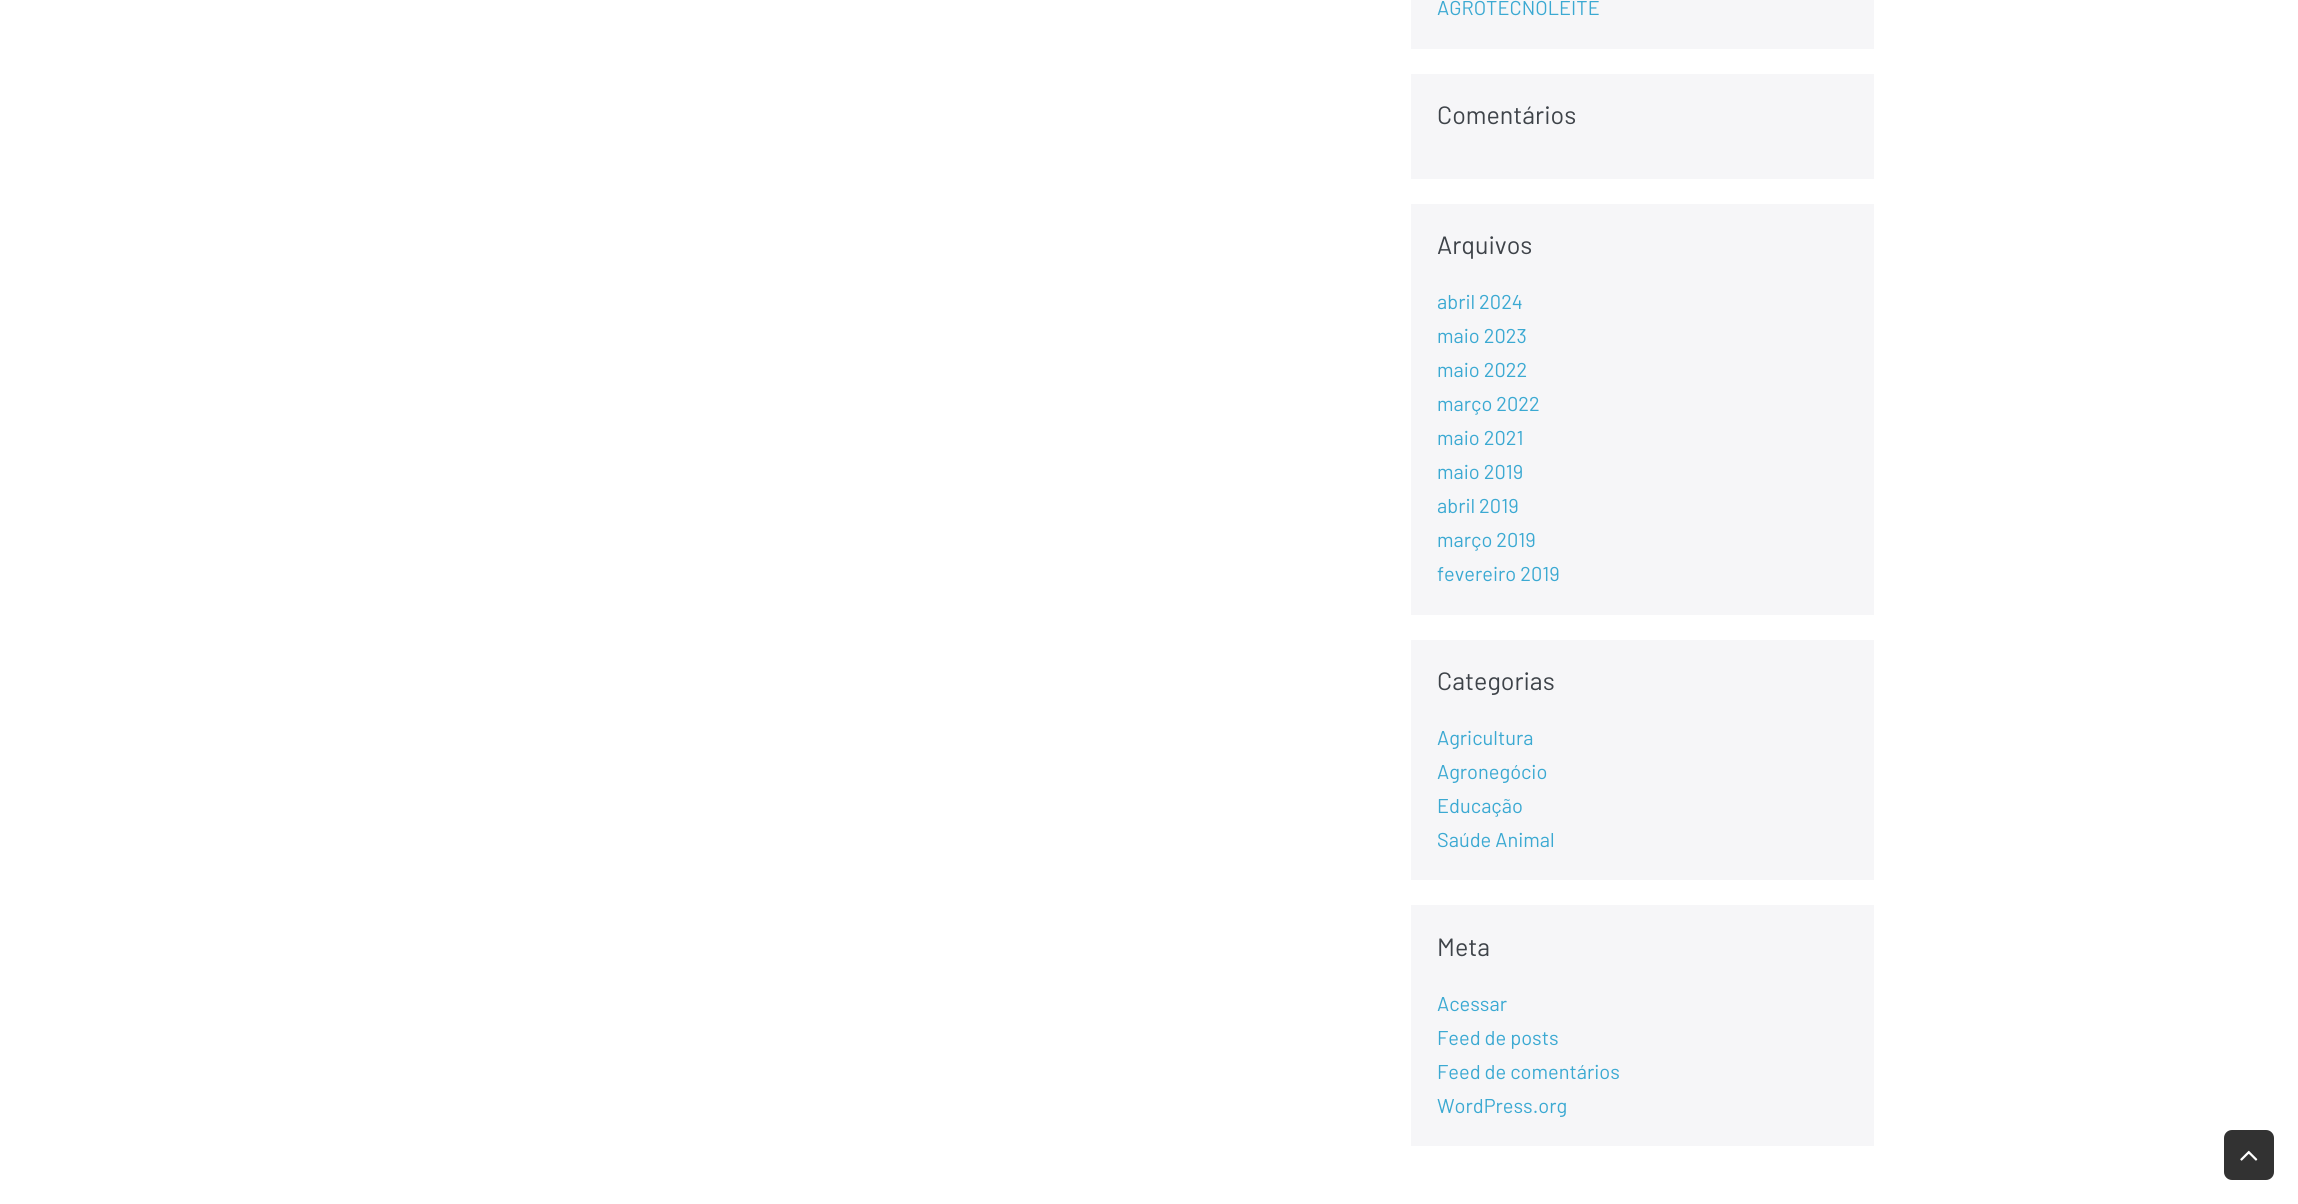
import math
import cairo


def round_path(ctx, x, y, w, h, r):
	ctx.new_sub_path()
	for i, (u, v) in enumerate([(x + w - r, y + h - r), (x + r, y + h - r), (x + r, y + r), (x + w - r, y + r)]):
		ctx.arc(u, v, r, i * math.pi / 2, (i + 1) * math.pi / 2)
	ctx.close_path()

def paste(ctx, path, x, y, w, h):
	ctx.save()
	ctx.set_source_surface(cairo.ImageSurface.create_from_png(path), x, y)
	ctx.rectangle(x, y, w, h)
	ctx.fill()
	ctx.restore()

def draw(ctx):
	ctx.set_source_rgb(1, 1, 1)
	ctx.paint()
	ctx.set_source_rgb(0.961, 0.961, 0.969)
	ctx.rectangle(1411, 0, 463, 49)
	ctx.fill()
	ctx.select_font_face('Barlow')
	ctx.set_font_size(20)
	ctx.set_source_rgb(0.231, 0.663, 0.824)
	ctx.move_to(1437, 15)
	ctx.show_text('AGROTECNOLEITE')
	ctx.set_source_rgb(0.961, 0.961, 0.969)
	ctx.rectangle(1411, 74, 463, 105)
	ctx.fill()
	ctx.set_font_size(25)
	ctx.set_source_rgb(0.243, 0.263, 0.286)
	ctx.move_to(1437, 124)
	ctx.show_text('Comentários')
	ctx.set_source_rgb(0.961, 0.961, 0.969)
	ctx.rectangle(1411, 204, 463, 411)
	ctx.fill()
	ctx.set_source_rgb(0.243, 0.263, 0.286)
	ctx.move_to(1437, 254)
	ctx.show_text('Arquivos')
	ctx.set_font_size(20)
	ctx.set_source_rgb(0.231, 0.663, 0.824)
	for x, y, s in [
		(1437, 309, 'abril 2024'),
		(1437, 343, 'maio 2023'),
		(1437, 377, 'maio 2022'),
		(1437, 411, 'março 2022'),
		(1437, 445, 'maio 2021'),
		(1437, 479, 'maio 2019'),
		(1437, 513, 'abril 2019'),
		(1437, 547, 'março 2019'),
		(1437, 581, 'fevereiro 2019'),
	]:
		ctx.move_to(x, y)
		ctx.show_text(s)
	ctx.set_source_rgb(0.961, 0.961, 0.969)
	ctx.rectangle(1411, 640, 463, 240)
	ctx.fill()
	ctx.set_font_size(25)
	ctx.set_source_rgb(0.243, 0.263, 0.286)
	ctx.move_to(1437, 690)
	ctx.show_text('Categorias')
	ctx.set_font_size(20)
	ctx.set_source_rgb(0.231, 0.663, 0.824)
	for x, y, s in [
		(1437, 745, 'Agricultura'),
		(1437, 779, 'Agronegócio'),
		(1437, 813, 'Educação'),
		(1437, 847, 'Saúde Animal'),
	]:
		ctx.move_to(x, y)
		ctx.show_text(s)
	ctx.set_source_rgb(0.961, 0.961, 0.969)
	ctx.rectangle(1411, 905, 463, 241)
	ctx.fill()
	ctx.set_font_size(25)
	ctx.set_source_rgb(0.243, 0.263, 0.286)
	ctx.move_to(1437, 956)
	ctx.show_text('Meta')
	ctx.set_font_size(20)
	ctx.set_source_rgb(0.231, 0.663, 0.824)
	for x, y, s in [
		(1437, 1011, 'Acessar'),
		(1437, 1045, 'Feed de posts'),
		(1437, 1079, 'Feed de comentários'),
		(1437, 1113, 'WordPress.org'),
	]:
		ctx.move_to(x, y)
		ctx.show_text(s)
	ctx.set_source_rgb(0.196, 0.196, 0.196)
	round_path(ctx, 2224, 1130, 50, 50, 8)
	ctx.fill()
	paste(ctx, 'media/1.png', 2240, 1150, 18, 11)


surface = cairo.ImageSurface(cairo.FORMAT_RGB24, 2298, 1204)
ctx = cairo.Context(surface)
options = cairo.FontOptions()
options.set_hint_metrics(cairo.HINT_METRICS_OFF)
options.set_hint_style(cairo.HINT_STYLE_NONE)
ctx.set_font_options(options)
ctx.set_miter_limit(4)
draw(ctx)
surface.write_to_png('image.png')
